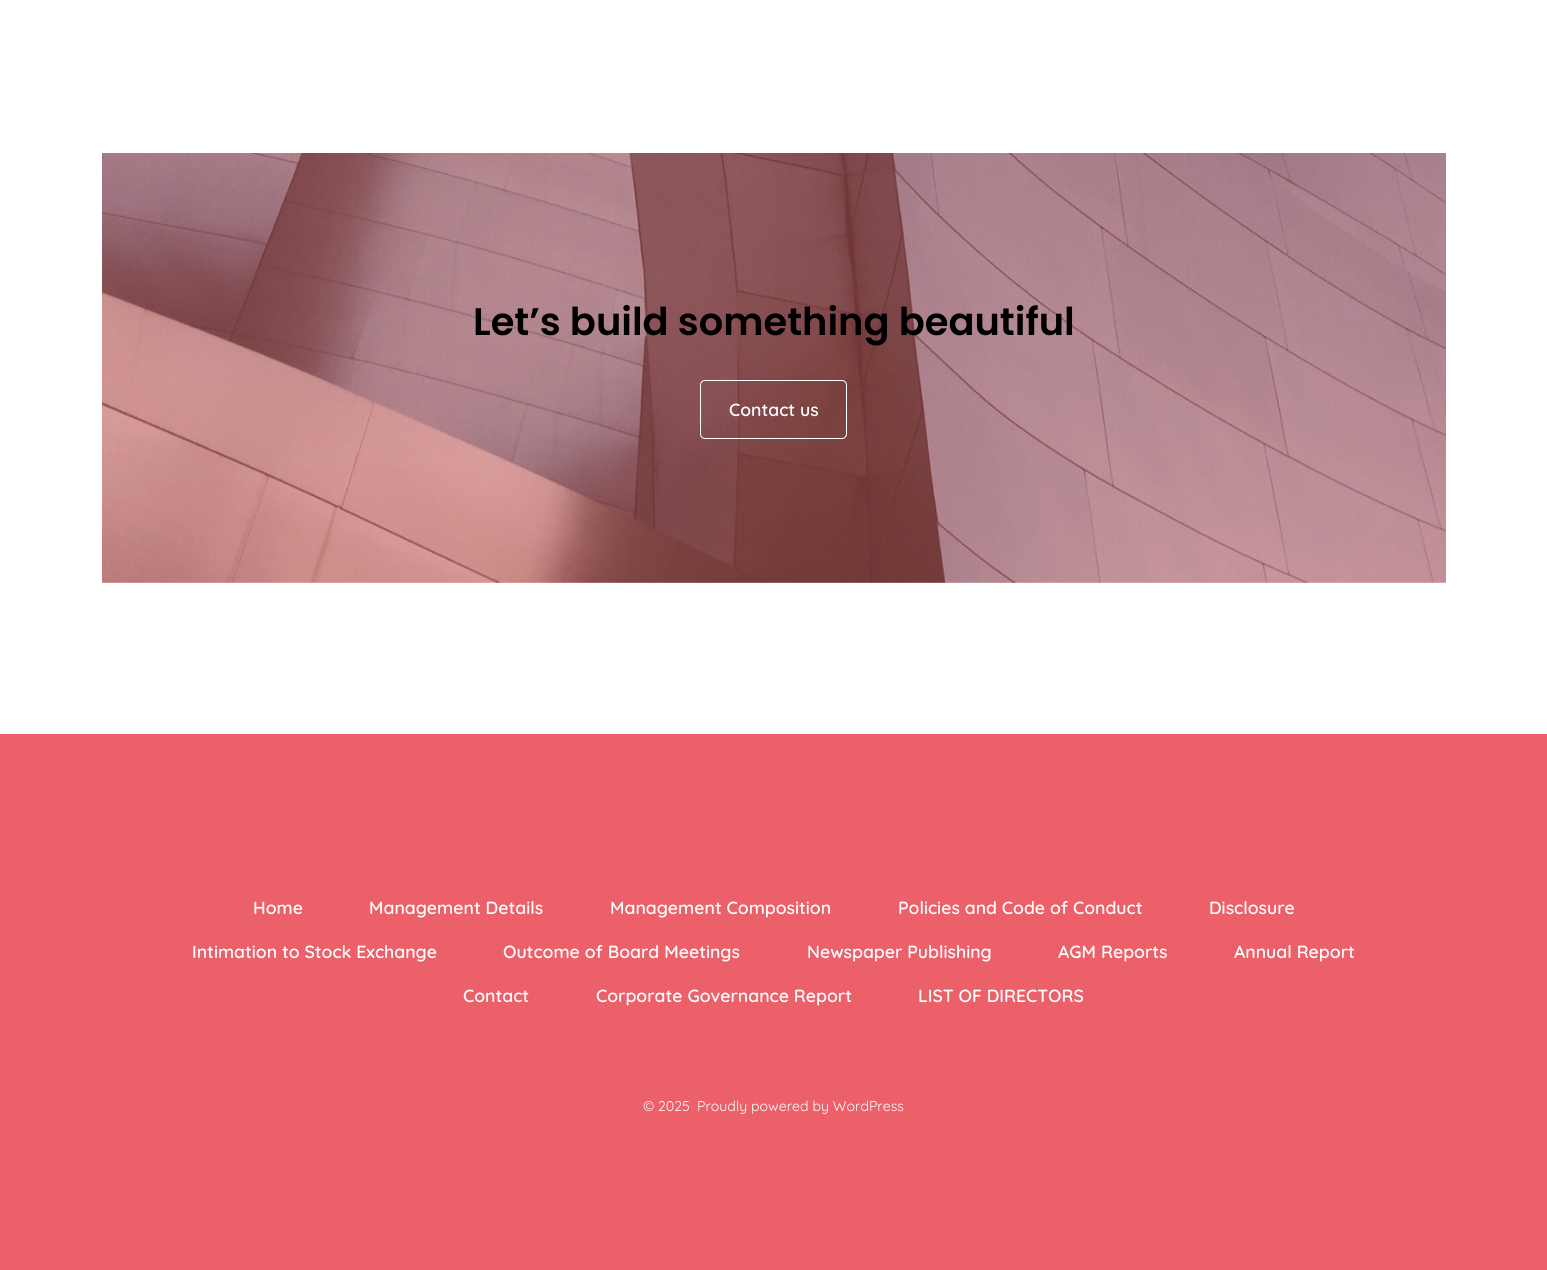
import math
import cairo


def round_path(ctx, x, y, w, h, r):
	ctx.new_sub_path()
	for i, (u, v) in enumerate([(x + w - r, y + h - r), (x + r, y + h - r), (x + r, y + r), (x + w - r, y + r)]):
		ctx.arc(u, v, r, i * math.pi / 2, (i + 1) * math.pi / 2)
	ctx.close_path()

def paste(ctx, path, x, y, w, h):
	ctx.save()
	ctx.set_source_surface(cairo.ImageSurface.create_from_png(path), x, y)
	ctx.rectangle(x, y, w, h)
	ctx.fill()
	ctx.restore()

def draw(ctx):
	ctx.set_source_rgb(1, 1, 1)
	ctx.paint()
	paste(ctx, 'media/1.png', 102, 153, 1344, 430)
	ctx.select_font_face('Poppins SemiBold')
	ctx.set_font_size(38.4)
	ctx.set_source_rgb(0, 0, 0)
	ctx.move_to(473, 335)
	ctx.show_text('Let’s build something beautiful')
	round_path(ctx, 700.5, 380.5, 146, 58, 4.5)
	ctx.set_source_rgb(1, 1, 1)
	ctx.set_line_width(1)
	ctx.stroke()
	ctx.select_font_face('Quicksand SemiBold')
	ctx.set_font_size(17.6)
	ctx.move_to(729, 416)
	ctx.show_text('Contact us')
	ctx.set_source_rgb(0.922, 0.376, 0.412)
	ctx.rectangle(0, 734, 1547, 536)
	ctx.fill()
	ctx.set_source_rgb(1, 1, 1)
	for x, y, s in [
		(253, 914, 'Home'),
		(369, 914, 'Management Details'),
		(610, 914, 'Management Composition'),
		(898, 914, 'Policies and Code of Conduct'),
		(1209, 914, 'Disclosure'),
		(192, 958, 'Intimation to Stock Exchange'),
		(503, 958, 'Outcome of Board Meetings'),
		(807, 958, 'Newspaper Publishing'),
		(1058, 958, 'AGM Reports'),
		(1234, 958, 'Annual Report'),
		(463, 1002, 'Contact'),
		(596, 1002, 'Corporate Governance Report'),
		(918, 1002, 'LIST OF DIRECTORS'),
	]:
		ctx.move_to(x, y)
		ctx.show_text(s)
	ctx.select_font_face('Quicksand')
	ctx.set_font_size(14.1)
	ctx.move_to(643, 1111)
	ctx.show_text('© 2025')
	ctx.move_to(697, 1111)
	ctx.show_text('Proudly powered by WordPress')


surface = cairo.ImageSurface(cairo.FORMAT_RGB24, 1547, 1270)
ctx = cairo.Context(surface)
options = cairo.FontOptions()
options.set_hint_metrics(cairo.HINT_METRICS_OFF)
options.set_hint_style(cairo.HINT_STYLE_NONE)
ctx.set_font_options(options)
ctx.set_miter_limit(4)
draw(ctx)
surface.write_to_png('image.png')
